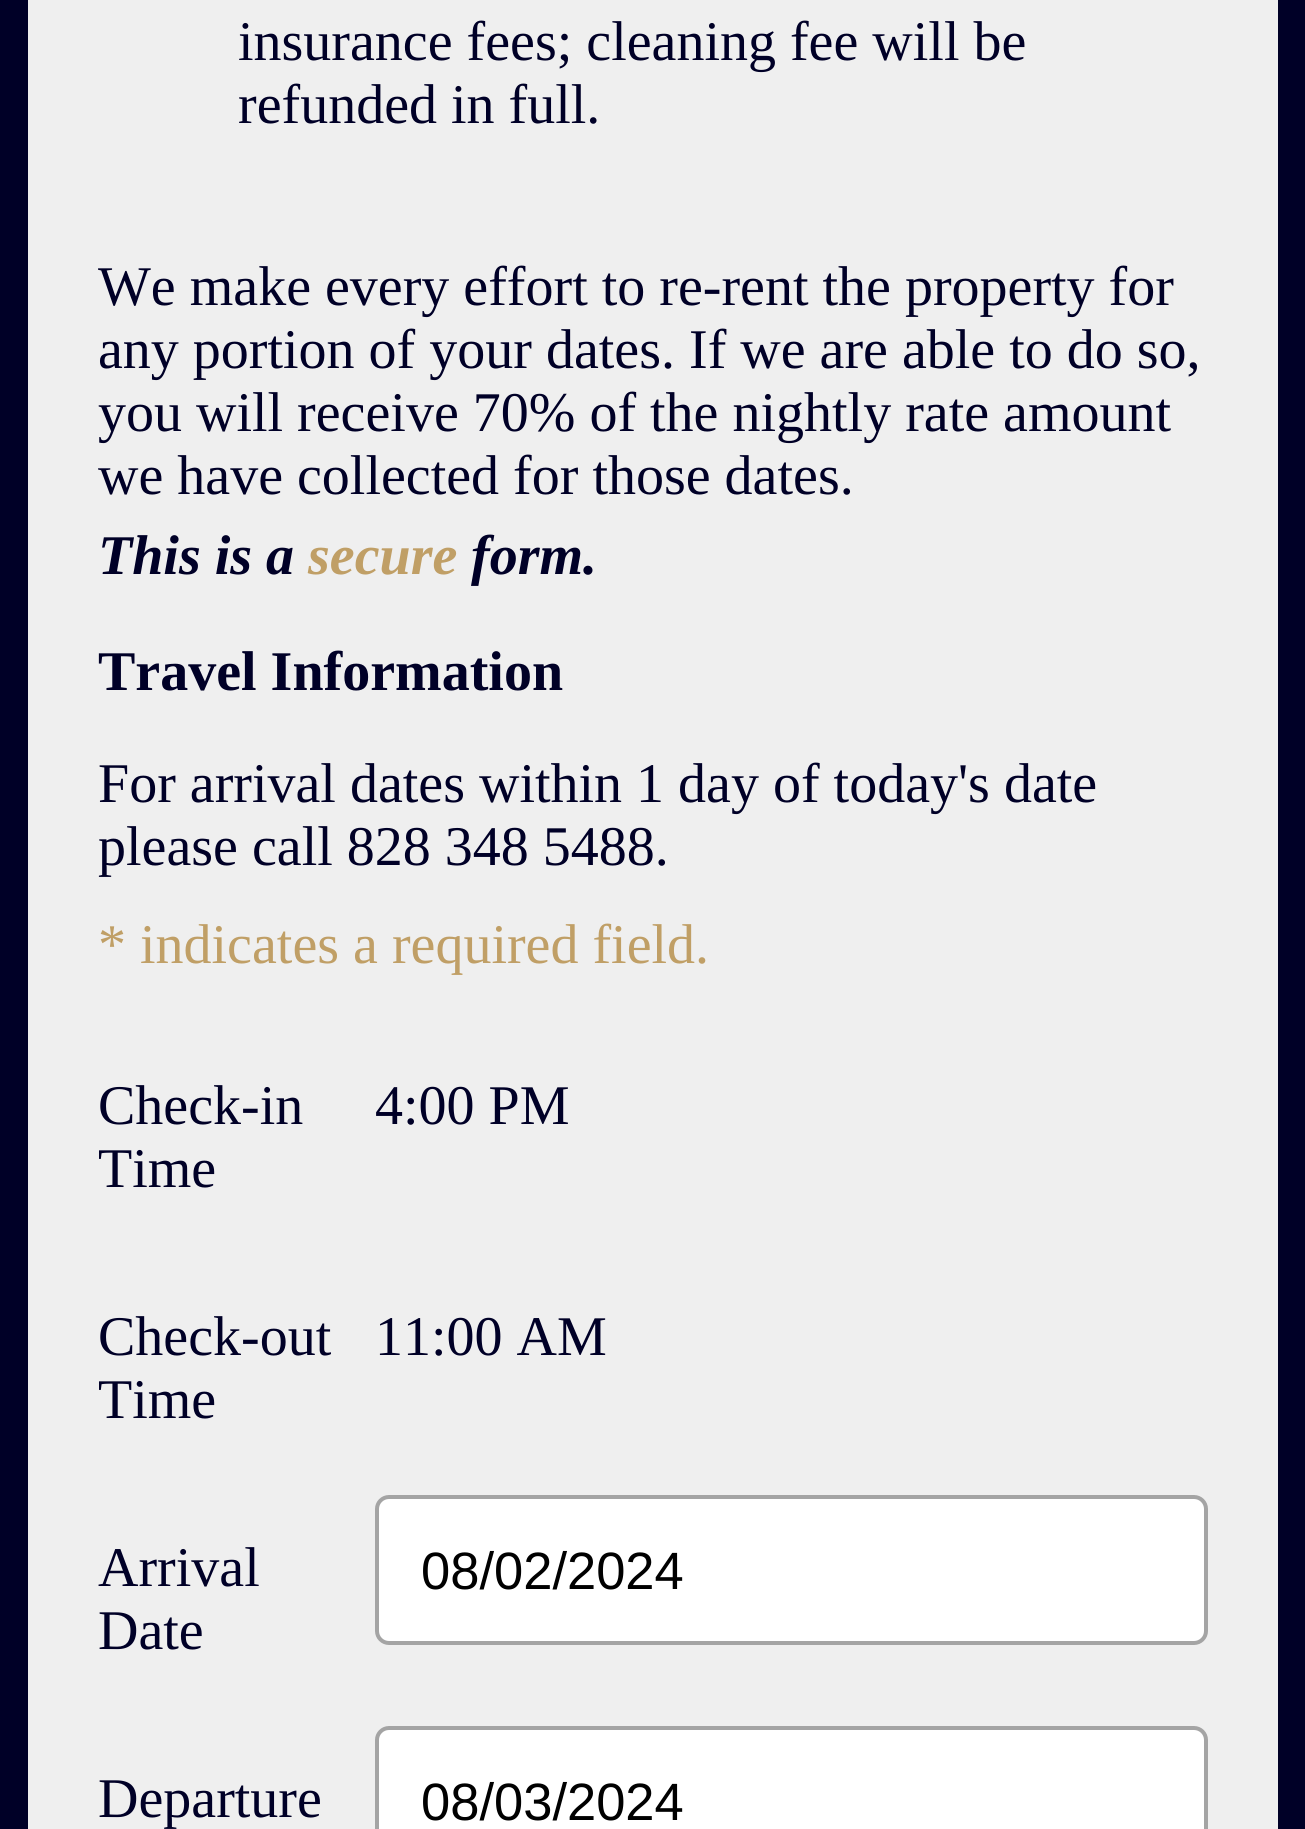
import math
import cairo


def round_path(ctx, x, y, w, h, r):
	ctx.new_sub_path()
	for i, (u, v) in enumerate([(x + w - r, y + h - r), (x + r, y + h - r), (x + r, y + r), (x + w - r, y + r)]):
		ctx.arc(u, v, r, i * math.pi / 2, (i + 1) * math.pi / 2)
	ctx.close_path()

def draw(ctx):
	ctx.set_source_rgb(0, 0, 0.153)
	ctx.paint()
	ctx.set_source_rgb(0.937, 0.937, 0.937)
	ctx.rectangle(28, 0, 1250, 1829)
	ctx.fill()
	ctx.select_font_face('Liberation Serif')
	ctx.set_font_size(56)
	ctx.set_source_rgb(0, 0, 0.153)
	for x, y, s in [
		(238, 60, 'insurance fees; cleaning fee will be'),
		(238, 123, 'refunded in full.'),
		(98, 305, 'We make every effort to re-rent the property for'),
		(98, 368, 'any portion of your dates. If we are able to do so,'),
		(98, 431, 'you will receive 70% of the nightly rate amount'),
		(98, 494, 'we have collected for those dates.'),
	]:
		ctx.move_to(x, y)
		ctx.show_text(s)
	ctx.select_font_face('Liberation Serif', cairo.FONT_SLANT_ITALIC, cairo.FONT_WEIGHT_BOLD)
	ctx.move_to(98, 574)
	ctx.show_text('This is a')
	ctx.set_source_rgb(0.753, 0.624, 0.4)
	ctx.move_to(308, 574)
	ctx.show_text('secure')
	ctx.set_source_rgb(0, 0, 0.153)
	ctx.move_to(471, 574)
	ctx.show_text('form.')
	ctx.select_font_face('Liberation Serif', cairo.FONT_SLANT_NORMAL, cairo.FONT_WEIGHT_BOLD)
	ctx.move_to(98, 690)
	ctx.show_text('Travel Information')
	ctx.select_font_face('Liberation Serif')
	ctx.move_to(98, 802)
	ctx.show_text('For arrival dates within 1 day of today\'s date')
	ctx.move_to(98, 865)
	ctx.show_text('please call 828 348 5488.')
	ctx.set_source_rgb(0.753, 0.624, 0.4)
	ctx.move_to(98, 963)
	ctx.show_text('* indicates a required field.')
	ctx.set_source_rgb(0, 0, 0.153)
	for x, y, s in [
		(98, 1124, 'Check-in'),
		(98, 1187, 'Time'),
		(375, 1124, '4:00 PM'),
		(98, 1355, 'Check-out'),
		(98, 1418, 'Time'),
		(375, 1355, '11:00 AM'),
		(98, 1586, 'Arrival'),
		(98, 1649, 'Date'),
	]:
		ctx.move_to(x, y)
		ctx.show_text(s)
	ctx.set_source_rgb(1, 1, 1)
	round_path(ctx, 377, 1497, 829, 146, 12)
	ctx.fill_preserve()
	ctx.set_source_rgb(0.643, 0.643, 0.643)
	ctx.set_line_width(4)
	ctx.stroke()
	ctx.select_font_face('Liberation Sans')
	ctx.set_font_size(52.5)
	ctx.set_source_rgb(0, 0, 0)
	ctx.move_to(421, 1589)
	ctx.show_text('08/02/2024')
	ctx.select_font_face('Liberation Serif')
	ctx.set_font_size(56)
	ctx.set_source_rgb(0, 0, 0.153)
	ctx.move_to(98, 1817)
	ctx.show_text('Departure')
	ctx.set_source_rgb(1, 1, 1)
	round_path(ctx, 377, 1728, 829, 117, 12)
	ctx.fill_preserve()
	ctx.set_source_rgb(0.643, 0.643, 0.643)
	ctx.stroke()
	ctx.select_font_face('Liberation Sans')
	ctx.set_font_size(52.5)
	ctx.set_source_rgb(0, 0, 0)
	ctx.move_to(421, 1820)
	ctx.show_text('08/03/2024')


surface = cairo.ImageSurface(cairo.FORMAT_RGB24, 1305, 1829)
ctx = cairo.Context(surface)
options = cairo.FontOptions()
options.set_hint_metrics(cairo.HINT_METRICS_OFF)
options.set_hint_style(cairo.HINT_STYLE_NONE)
ctx.set_font_options(options)
ctx.set_miter_limit(4)
draw(ctx)
surface.write_to_png('image.png')
